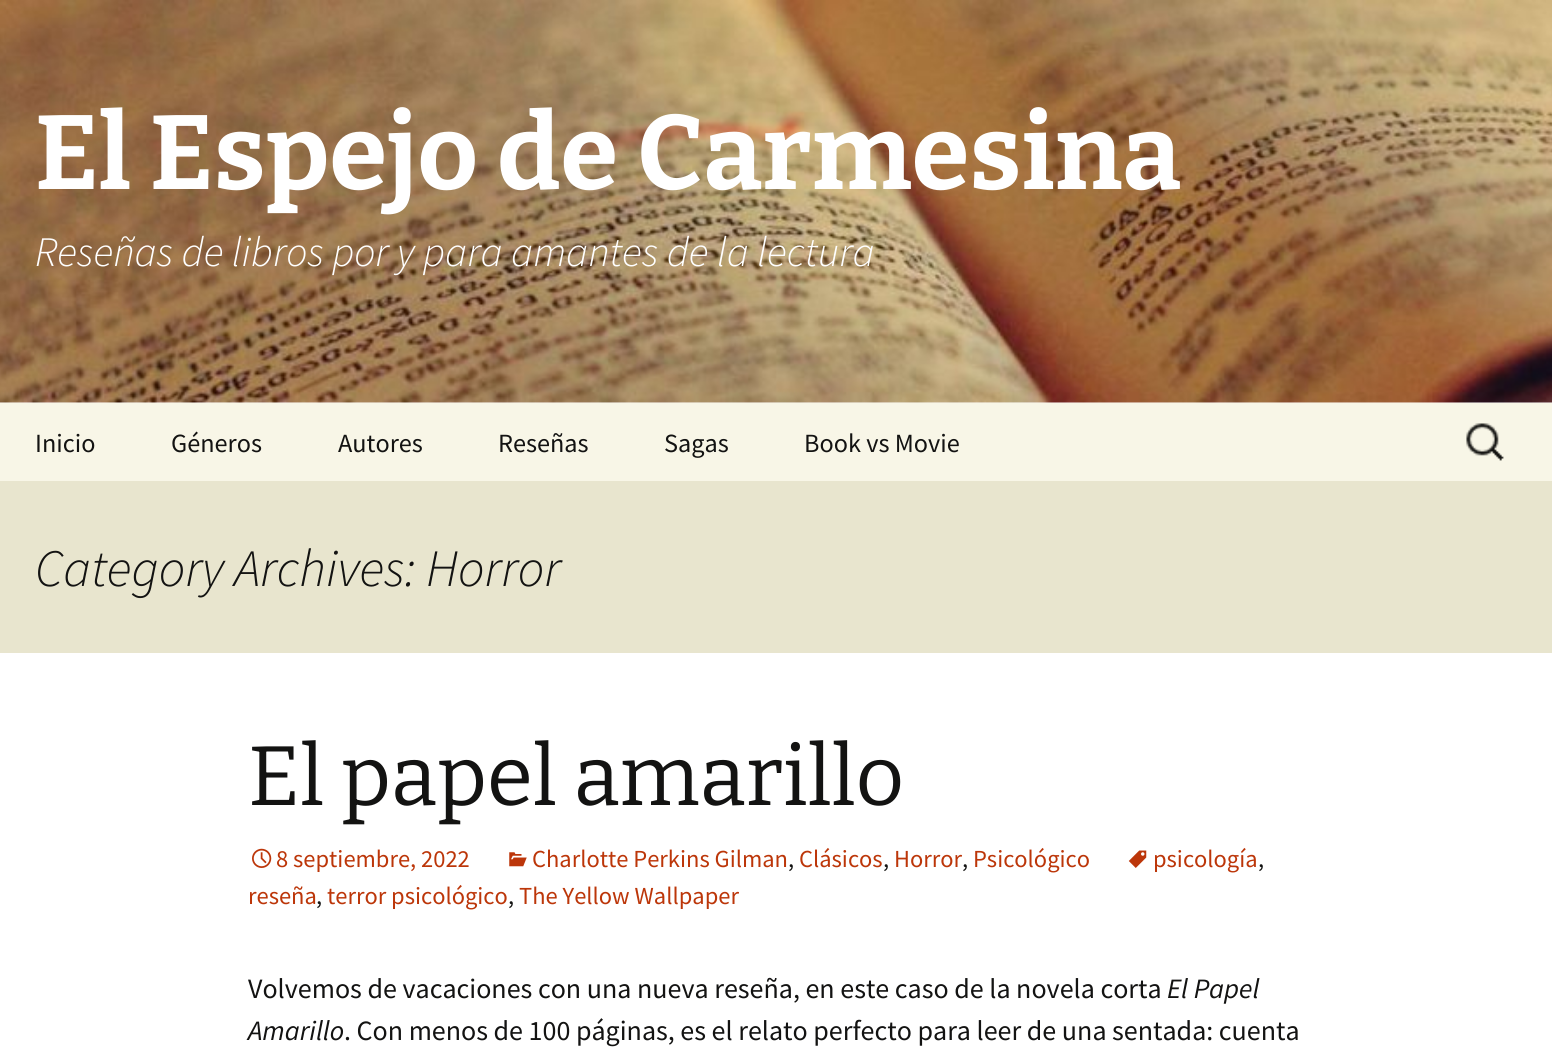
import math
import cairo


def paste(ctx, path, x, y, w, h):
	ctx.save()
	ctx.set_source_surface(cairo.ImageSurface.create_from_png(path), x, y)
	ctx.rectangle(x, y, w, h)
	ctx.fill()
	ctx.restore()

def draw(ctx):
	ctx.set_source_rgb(1, 1, 1)
	ctx.paint()
	paste(ctx, 'media/1.png', 0, 0, 1552, 403)
	ctx.select_font_face('Bitter Thin')
	ctx.set_font_size(105)
	ctx.set_source_rgb(1, 1, 1)
	ctx.move_to(35, 189)
	ctx.show_text('El Espejo de Carmesina')
	ctx.select_font_face('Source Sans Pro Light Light', cairo.FONT_SLANT_ITALIC)
	ctx.set_font_size(42)
	ctx.move_to(35, 266)
	ctx.show_text('Reseñas de libros por y para amantes de la lectura')
	ctx.set_source_rgb(0.969, 0.961, 0.906)
	ctx.rectangle(0, 403, 1552, 78)
	ctx.fill()
	ctx.select_font_face('Source Sans Pro')
	ctx.set_font_size(26.25)
	ctx.set_source_rgb(0.078, 0.078, 0.071)
	for x, y, s in [
		(35, 452, 'Inicio'),
		(171, 452, 'Géneros'),
		(338, 452, 'Autores'),
		(498, 452, 'Reseñas'),
		(664, 452, 'Sagas'),
		(804, 452, 'Book vs Movie'),
	]:
		ctx.move_to(x, y)
		ctx.show_text(s)
	paste(ctx, 'media/2.png', 1466, 423, 38, 38)
	ctx.set_source_rgb(0.91, 0.898, 0.808)
	ctx.rectangle(0, 481, 1552, 172)
	ctx.fill()
	ctx.select_font_face('Source Sans Pro Light Light', cairo.FONT_SLANT_ITALIC)
	ctx.set_font_size(52.5)
	ctx.set_source_rgb(0.078, 0.078, 0.071)
	ctx.move_to(35, 586)
	ctx.show_text('Category Archives: Horror')
	ctx.select_font_face('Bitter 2 Thin')
	ctx.set_font_size(84)
	ctx.move_to(248, 805)
	ctx.show_text('El papel amarillo')
	paste(ctx, 'media/3.png', 1128, 850, 19, 18)
	ctx.select_font_face('Source Sans Pro')
	ctx.set_font_size(24.5)
	ctx.set_source_rgb(0.737, 0.212, 0.039)
	ctx.move_to(1153, 867)
	ctx.show_text('psicología')
	ctx.set_source_rgb(0.078, 0.078, 0.071)
	ctx.move_to(1258, 867)
	ctx.show_text(',')
	ctx.set_source_rgb(0.737, 0.212, 0.039)
	ctx.move_to(248, 904)
	ctx.show_text('reseña')
	ctx.set_source_rgb(0.078, 0.078, 0.071)
	ctx.move_to(316, 904)
	ctx.show_text(',')
	ctx.set_source_rgb(0.737, 0.212, 0.039)
	ctx.move_to(327, 904)
	ctx.show_text('terror psicológico')
	ctx.set_source_rgb(0.078, 0.078, 0.071)
	ctx.move_to(508, 904)
	ctx.show_text(',')
	ctx.set_source_rgb(0.737, 0.212, 0.039)
	ctx.move_to(519, 904)
	ctx.show_text('The Yellow Wallpaper')
	paste(ctx, 'media/4.png', 252, 848, 20, 20)
	ctx.move_to(276, 867)
	ctx.show_text('8 septiembre, 2022')
	paste(ctx, 'media/5.png', 509, 852, 18, 15)
	ctx.move_to(532, 867)
	ctx.show_text('Charlotte Perkins Gilman')
	ctx.set_source_rgb(0.078, 0.078, 0.071)
	ctx.move_to(788, 867)
	ctx.show_text(',')
	ctx.set_source_rgb(0.737, 0.212, 0.039)
	ctx.move_to(799, 867)
	ctx.show_text('Clásicos')
	ctx.set_source_rgb(0.078, 0.078, 0.071)
	ctx.move_to(883, 867)
	ctx.show_text(',')
	ctx.set_source_rgb(0.737, 0.212, 0.039)
	ctx.move_to(894, 867)
	ctx.show_text('Horror')
	ctx.set_source_rgb(0.078, 0.078, 0.071)
	ctx.move_to(962, 867)
	ctx.show_text(',')
	ctx.set_source_rgb(0.737, 0.212, 0.039)
	ctx.move_to(973, 867)
	ctx.show_text('Psicológico')
	ctx.set_font_size(28)
	ctx.set_source_rgb(0.078, 0.078, 0.071)
	ctx.move_to(248, 998)
	ctx.show_text('Volvemos de vacaciones con una nueva reseña, en este caso de la novela corta')
	ctx.select_font_face('Source Sans Pro', cairo.FONT_SLANT_ITALIC)
	ctx.move_to(1167, 998)
	ctx.show_text('El Papel')
	ctx.move_to(248, 1040)
	ctx.show_text('Amarillo')
	ctx.select_font_face('Source Sans Pro')
	ctx.move_to(344, 1040)
	ctx.show_text('. Con menos de 100 páginas, es el relato perfecto para leer de una sentada: cuenta')


surface = cairo.ImageSurface(cairo.FORMAT_RGB24, 1552, 1060)
ctx = cairo.Context(surface)
options = cairo.FontOptions()
options.set_hint_metrics(cairo.HINT_METRICS_OFF)
options.set_hint_style(cairo.HINT_STYLE_NONE)
ctx.set_font_options(options)
ctx.set_miter_limit(4)
draw(ctx)
surface.write_to_png('image.png')
